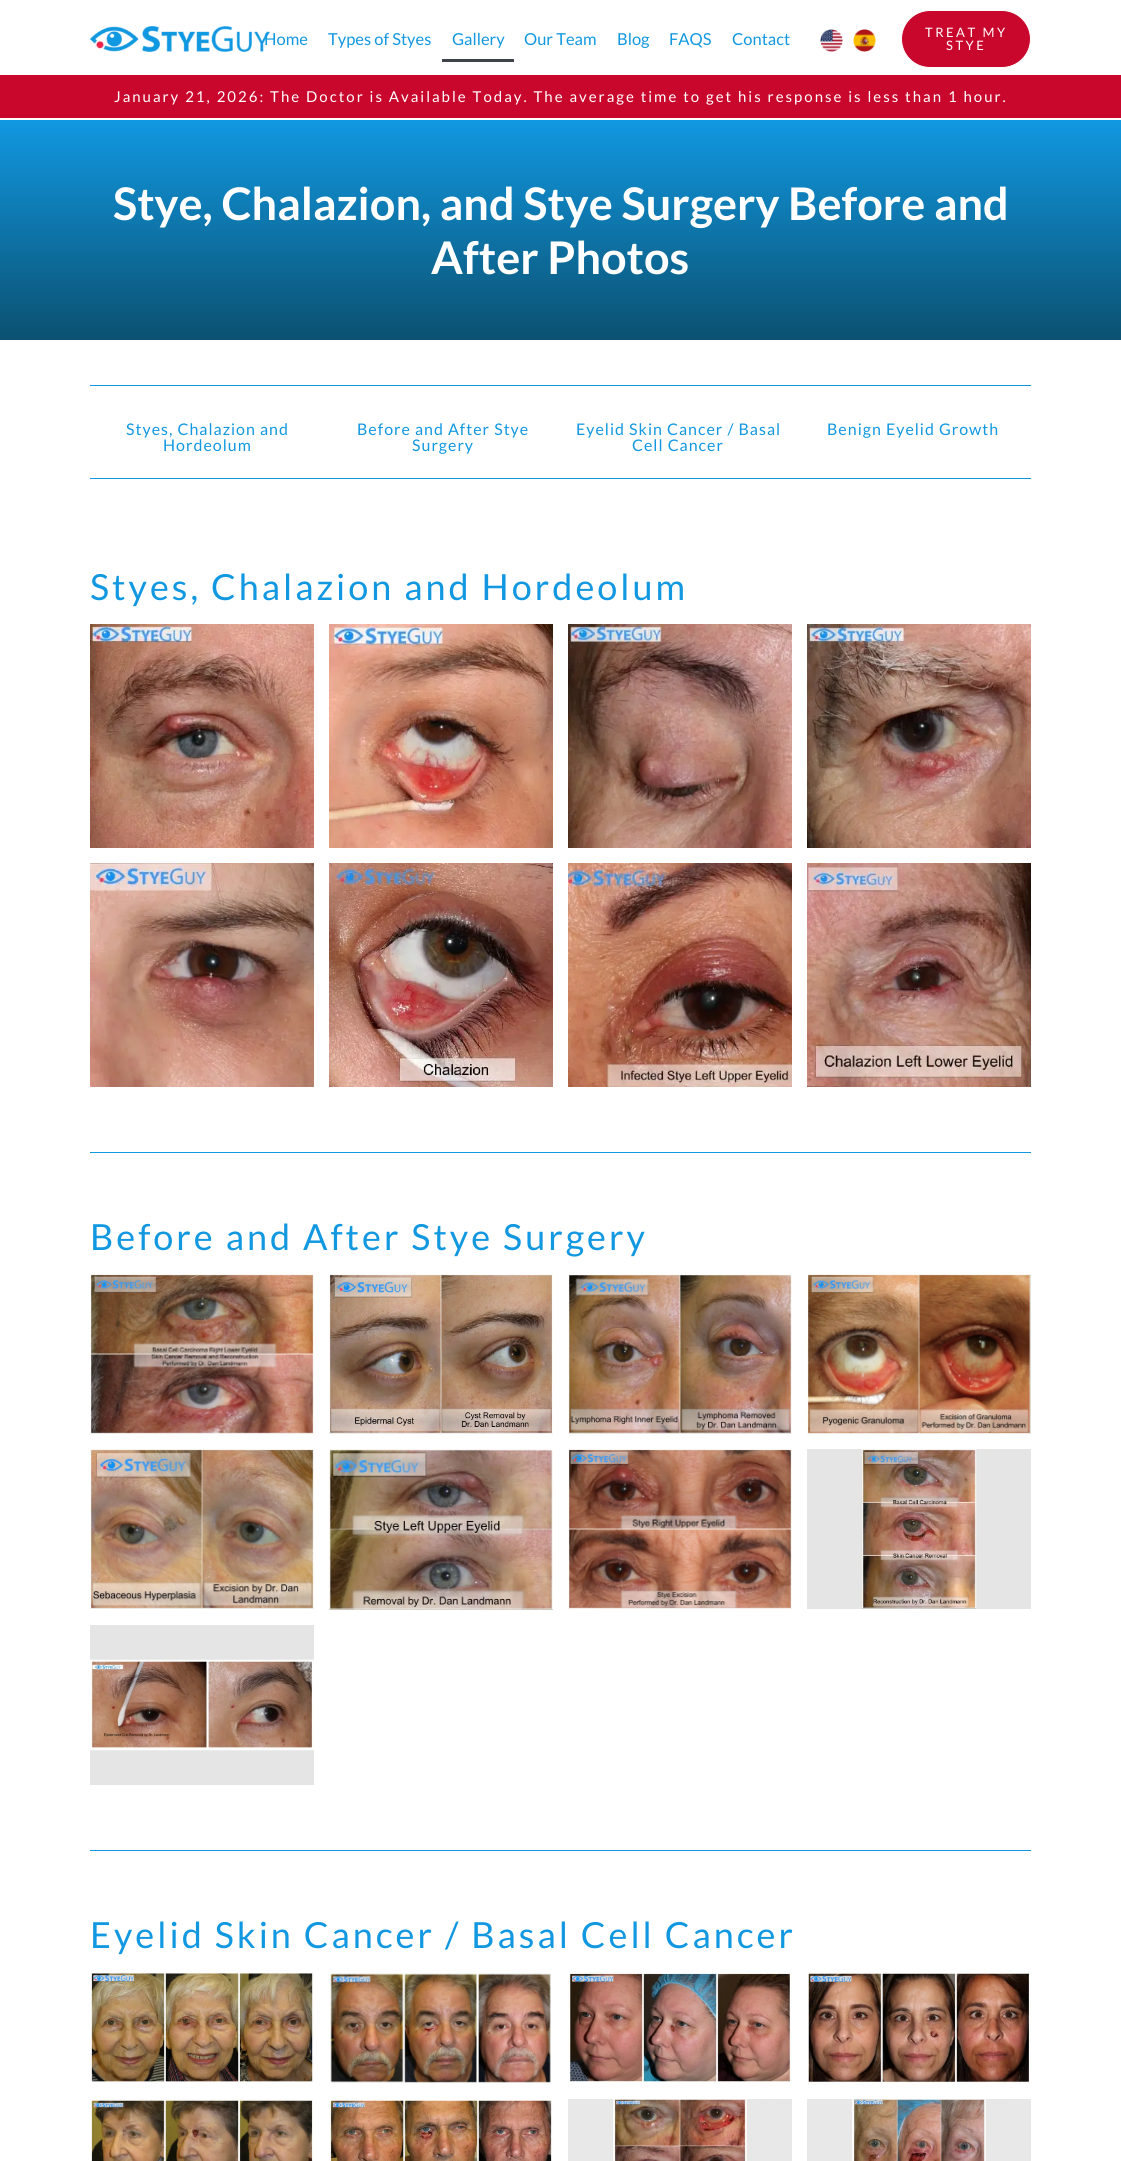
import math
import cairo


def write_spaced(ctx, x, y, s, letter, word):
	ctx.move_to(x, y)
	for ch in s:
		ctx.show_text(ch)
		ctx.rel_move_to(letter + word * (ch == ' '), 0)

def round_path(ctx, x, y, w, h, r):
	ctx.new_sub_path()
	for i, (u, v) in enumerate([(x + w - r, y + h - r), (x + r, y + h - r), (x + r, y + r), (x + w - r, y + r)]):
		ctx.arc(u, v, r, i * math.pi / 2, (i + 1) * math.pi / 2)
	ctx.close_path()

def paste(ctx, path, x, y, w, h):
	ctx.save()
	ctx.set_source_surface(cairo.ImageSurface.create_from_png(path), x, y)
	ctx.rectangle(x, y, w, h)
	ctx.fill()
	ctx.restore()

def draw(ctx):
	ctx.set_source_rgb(1, 1, 1)
	ctx.paint()
	paste(ctx, 'media/1.png', 90, 26, 180, 26)
	ctx.select_font_face('Lato')
	ctx.set_font_size(16.5)
	ctx.set_source_rgb(0.067, 0.596, 0.882)
	for x, y, s in [
		(264, 45, 'Home'),
		(328, 45, 'Types of Styes'),
		(452, 45, 'Gallery'),
	]:
		ctx.move_to(x, y)
		ctx.show_text(s)
	ctx.set_source_rgb(0.247, 0.267, 0.294)
	ctx.rectangle(442, 59, 72, 3)
	ctx.fill()
	ctx.set_source_rgb(0.067, 0.596, 0.882)
	for x, y, s in [
		(524, 45, 'Our Team'),
		(617, 45, 'Blog'),
		(669, 45, 'FAQS'),
		(732, 45, 'Contact'),
	]:
		ctx.move_to(x, y)
		ctx.show_text(s)
	paste(ctx, 'media/2.png', 820, 29, 23, 23)
	paste(ctx, 'media/3.png', 853, 29, 23, 23)
	ctx.set_source_rgb(0.788, 0.027, 0.173)
	round_path(ctx, 901.5, 10.5, 129, 57, 28.5)
	ctx.fill_preserve()
	ctx.set_source_rgb(1, 1, 1)
	ctx.set_line_width(1)
	ctx.stroke()
	ctx.set_font_size(13)
	write_spaced(ctx, 925, 37, 'TREAT MY', 2.5, 0)
	write_spaced(ctx, 946, 50, 'STYE', 2.5, 0)
	ctx.set_source_rgb(0.788, 0.027, 0.173)
	ctx.rectangle(0, 75, 1121, 43)
	ctx.fill()
	ctx.set_font_size(15)
	ctx.set_source_rgb(1, 1, 1)
	write_spaced(ctx, 114, 102, 'January 21, 2026: The Doctor is Available Today. The average time to get his response is less than 1 hour.', 2, 0)
	gradient = cairo.LinearGradient(561, 120, 561, 340)
	gradient.add_color_stop_rgba(0, 0.067, 0.596, 0.882, 1)
	gradient.add_color_stop_rgba(1, 0.043, 0.318, 0.443, 1)
	ctx.set_source(gradient)
	ctx.rectangle(0, 120, 1121, 220)
	ctx.fill()
	ctx.select_font_face('Lato', cairo.FONT_SLANT_NORMAL, cairo.FONT_WEIGHT_BOLD)
	ctx.set_font_size(45)
	ctx.set_source_rgb(1, 1, 1)
	ctx.move_to(113, 220)
	ctx.show_text('Stye, Chalazion, and Stye Surgery Before and')
	ctx.move_to(431, 274)
	ctx.show_text('After Photos')
	ctx.set_source_rgb(0.067, 0.596, 0.882)
	ctx.rectangle(90, 385, 941, 1)
	ctx.fill()
	ctx.select_font_face('Lato')
	ctx.set_font_size(16)
	for x, y, s in [
		(126, 435, 'Styes, Chalazion and'),
		(163, 451, 'Hordeolum'),
		(357, 435, 'Before and After Stye'),
		(412, 451, 'Surgery'),
		(576, 435, 'Eyelid Skin Cancer / Basal'),
		(632, 451, 'Cell Cancer'),
		(827, 435, 'Benign Eyelid Growth'),
	]:
		write_spaced(ctx, x, y, s, 1, 0)
	ctx.rectangle(90, 478, 941, 1)
	ctx.fill()
	ctx.set_font_size(36)
	write_spaced(ctx, 90, 600, 'Styes, Chalazion and Hordeolum', 3, 0)
	paste(ctx, 'media/4.png', 90, 624, 224, 224)
	paste(ctx, 'media/5.png', 329, 624, 224, 224)
	paste(ctx, 'media/6.png', 568, 624, 224, 224)
	paste(ctx, 'media/7.png', 807, 624, 224, 224)
	paste(ctx, 'media/8.png', 90, 863, 224, 224)
	paste(ctx, 'media/9.png', 329, 863, 224, 224)
	paste(ctx, 'media/10.png', 568, 863, 224, 224)
	paste(ctx, 'media/11.png', 807, 863, 224, 224)
	ctx.rectangle(90, 1152, 941, 1)
	ctx.fill()
	write_spaced(ctx, 90, 1250, 'Before and After Stye Surgery', 3, 0)
	paste(ctx, 'media/12.png', 90, 1274, 224, 160)
	paste(ctx, 'media/13.png', 329, 1274, 224, 160)
	paste(ctx, 'media/14.png', 568, 1274, 224, 160)
	paste(ctx, 'media/15.png', 807, 1274, 224, 160)
	paste(ctx, 'media/16.png', 90, 1449, 224, 160)
	paste(ctx, 'media/17.png', 329, 1449, 224, 161)
	paste(ctx, 'media/18.png', 568, 1449, 224, 160)
	paste(ctx, 'media/19.png', 807, 1449, 224, 160)
	paste(ctx, 'media/20.png', 90, 1625, 224, 160)
	ctx.rectangle(90, 1850, 941, 1)
	ctx.fill()
	write_spaced(ctx, 90, 1948, 'Eyelid Skin Cancer / Basal Cell Cancer', 3, 0)
	paste(ctx, 'media/21.png', 90, 1972, 224, 111)
	paste(ctx, 'media/22.png', 330, 1973, 221, 111)
	paste(ctx, 'media/23.png', 568, 1972, 224, 111)
	paste(ctx, 'media/24.png', 807, 1972, 224, 112)
	paste(ctx, 'media/25.png', 90, 2099, 224, 62)
	paste(ctx, 'media/26.png', 329, 2099, 224, 62)
	paste(ctx, 'media/27.png', 568, 2099, 224, 62)
	paste(ctx, 'media/28.png', 807, 2099, 224, 62)


surface = cairo.ImageSurface(cairo.FORMAT_RGB24, 1121, 2161)
ctx = cairo.Context(surface)
options = cairo.FontOptions()
options.set_hint_metrics(cairo.HINT_METRICS_OFF)
options.set_hint_style(cairo.HINT_STYLE_NONE)
ctx.set_font_options(options)
ctx.set_miter_limit(4)
draw(ctx)
surface.write_to_png('image.png')
